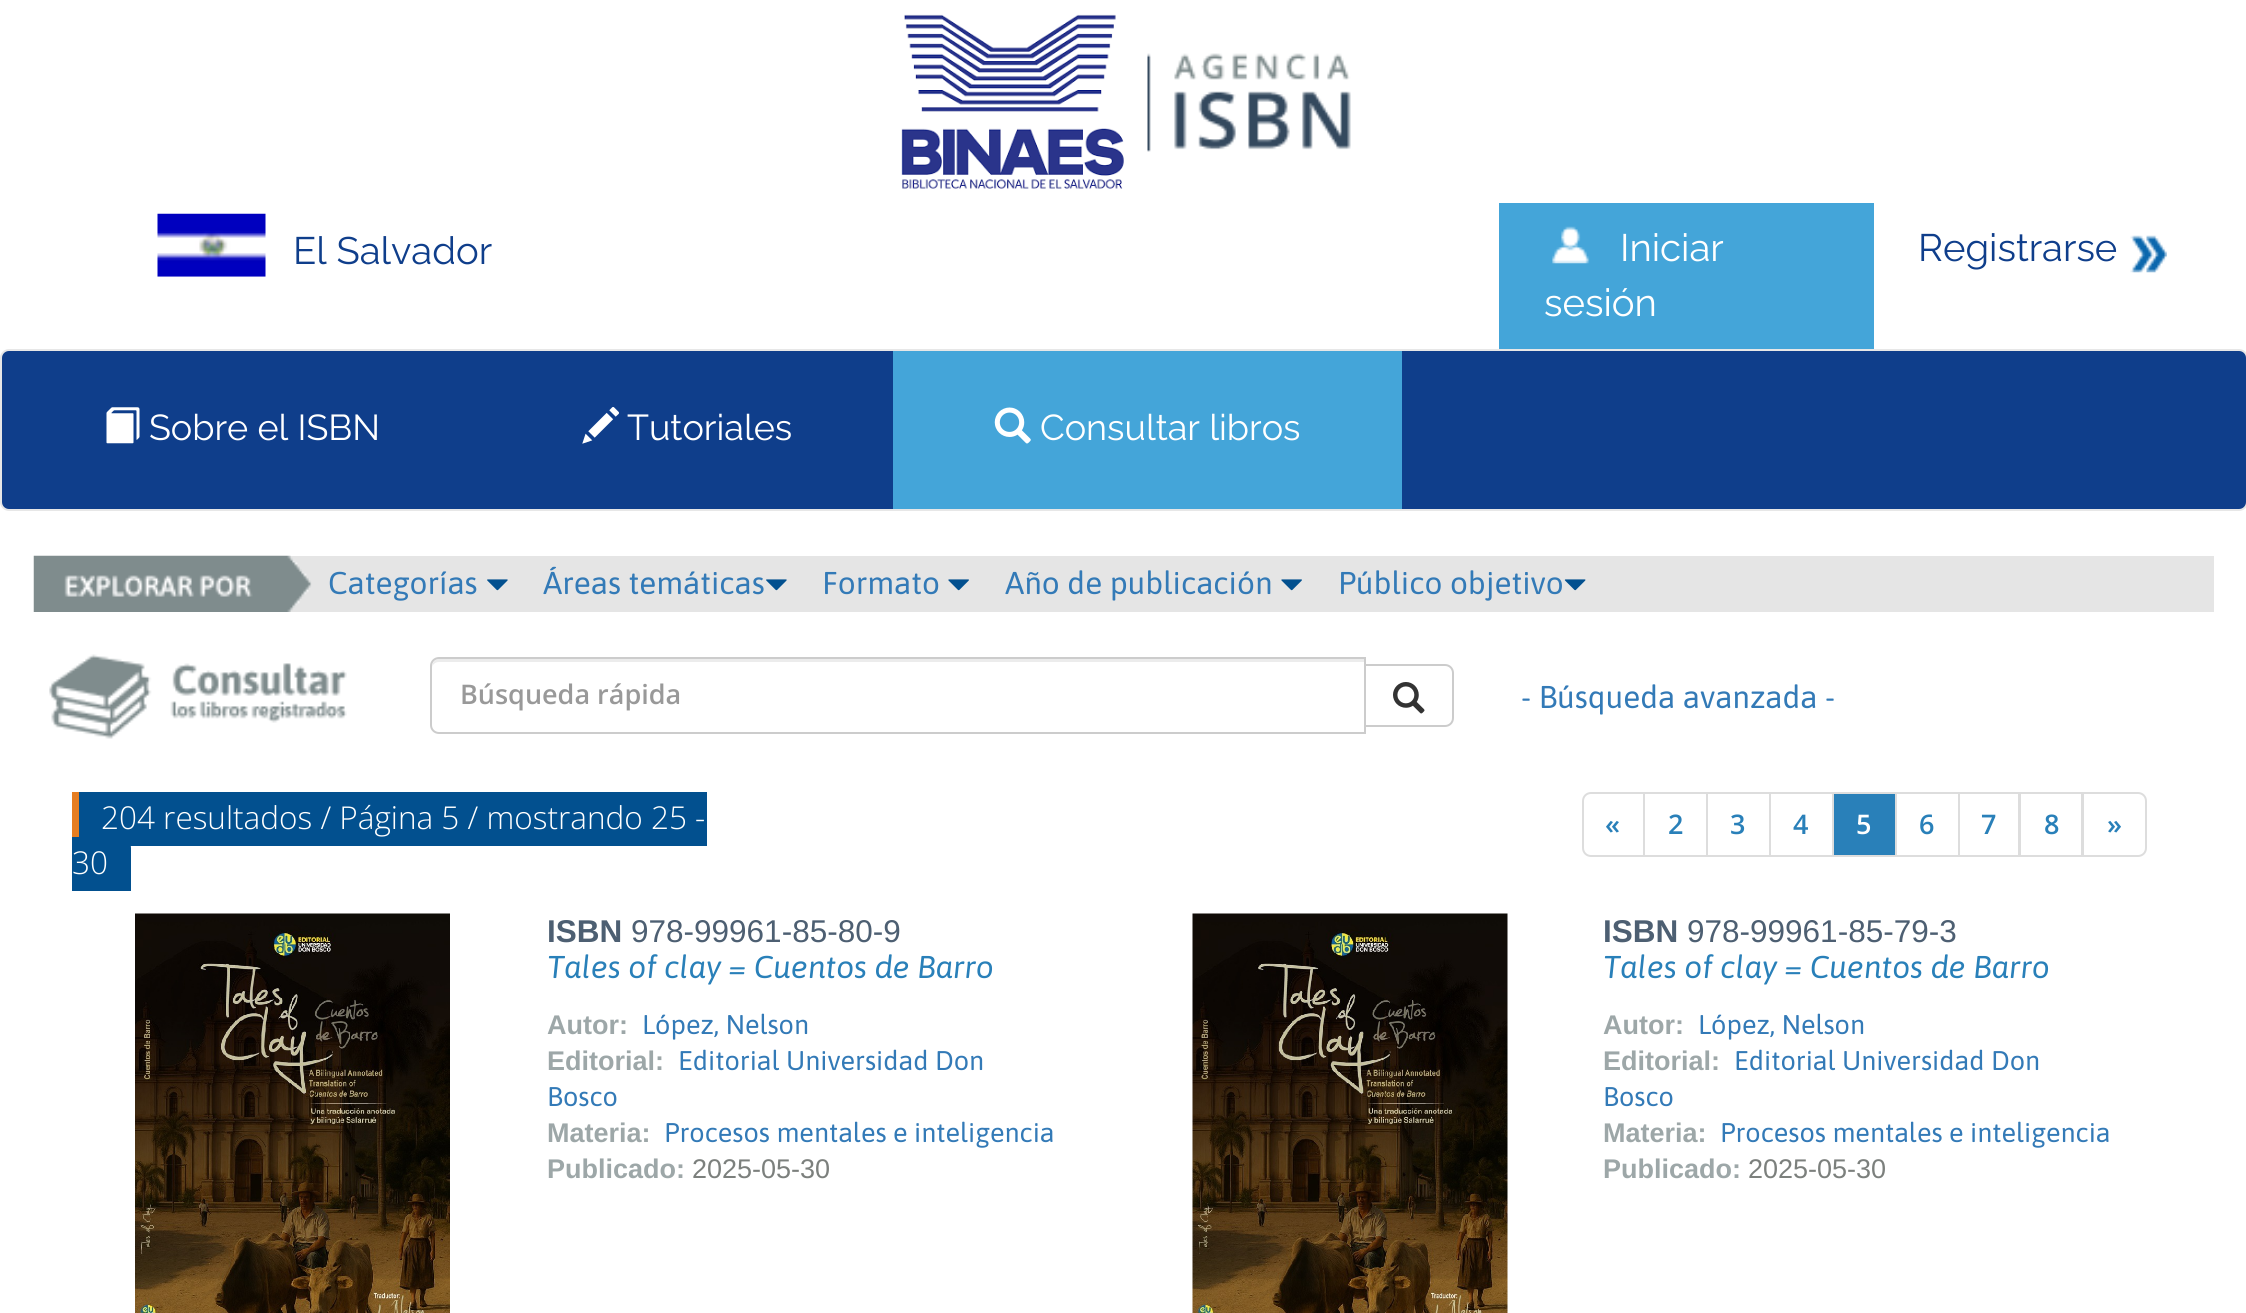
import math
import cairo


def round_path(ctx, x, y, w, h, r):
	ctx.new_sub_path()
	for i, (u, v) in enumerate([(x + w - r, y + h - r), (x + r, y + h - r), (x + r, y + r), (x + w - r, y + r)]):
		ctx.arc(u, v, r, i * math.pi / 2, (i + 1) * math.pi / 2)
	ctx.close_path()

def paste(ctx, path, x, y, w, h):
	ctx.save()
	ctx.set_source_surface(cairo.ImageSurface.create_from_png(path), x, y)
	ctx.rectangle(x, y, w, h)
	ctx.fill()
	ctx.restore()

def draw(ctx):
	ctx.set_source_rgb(1, 1, 1)
	ctx.paint()
	paste(ctx, 'media/1.png', 901, 14, 223, 175)
	paste(ctx, 'media/2.png', 1147, 53, 204, 99)
	paste(ctx, 'media/3.png', 157, 213, 109, 64)
	ctx.select_font_face('Raleway Thin')
	ctx.set_font_size(38.25)
	ctx.set_source_rgb(0.059, 0.243, 0.545)
	ctx.move_to(293, 264)
	ctx.show_text('El Salvador')
	ctx.set_source_rgb(0.267, 0.647, 0.851)
	ctx.rectangle(1499, 203, 375, 146)
	ctx.fill()
	paste(ctx, 'media/4.png', 1552, 226, 38, 38)
	ctx.set_source_rgb(1, 1, 1)
	ctx.move_to(1620, 261)
	ctx.show_text('Iniciar')
	ctx.move_to(1544, 316)
	ctx.show_text('sesión')
	ctx.set_source_rgb(0.059, 0.243, 0.545)
	ctx.move_to(1918, 261)
	ctx.show_text('Registrarse')
	paste(ctx, 'media/5.png', 2130, 235, 37, 38)
	round_path(ctx, 1, 350, 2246, 160, 8)
	ctx.fill_preserve()
	ctx.set_source_rgb(0.906, 0.906, 0.906)
	ctx.stroke()
	paste(ctx, 'media/6.png', 106, 407, 34, 37)
	ctx.set_font_size(36)
	ctx.set_source_rgb(1, 1, 1)
	ctx.move_to(149, 440)
	ctx.show_text('Sobre el ISBN')
	paste(ctx, 'media/7.png', 582, 407, 37, 37)
	ctx.move_to(627, 440)
	ctx.show_text('Tutoriales')
	ctx.set_source_rgb(0.267, 0.647, 0.851)
	ctx.rectangle(893, 351, 509, 158)
	ctx.fill()
	paste(ctx, 'media/8.png', 994, 407, 37, 37)
	ctx.set_source_rgb(1, 1, 1)
	ctx.move_to(1040, 440)
	ctx.show_text('Consultar libros')
	ctx.set_source_rgb(0.898, 0.898, 0.898)
	ctx.rectangle(289, 556, 1925, 56)
	ctx.fill()
	paste(ctx, 'media/9.png', 33, 555, 279, 57)
	ctx.select_font_face('Asap')
	ctx.set_font_size(31.5)
	ctx.set_source_rgb(0.2, 0.478, 0.718)
	ctx.move_to(328, 594)
	ctx.show_text('Categorías')
	paste(ctx, 'media/10.png', 487, 579, 21, 12)
	ctx.move_to(543, 594)
	ctx.show_text('Áreas temáticas')
	paste(ctx, 'media/10.png', 766, 579, 21, 12)
	ctx.move_to(822, 594)
	ctx.show_text('Formato')
	paste(ctx, 'media/11.png', 948, 579, 21, 12)
	ctx.move_to(1005, 594)
	ctx.show_text('Año de publicación')
	paste(ctx, 'media/11.png', 1281, 579, 21, 12)
	ctx.move_to(1338, 594)
	ctx.show_text('Público objetivo')
	paste(ctx, 'media/12.png', 1564, 579, 22, 12)
	paste(ctx, 'media/13.png', 49, 654, 298, 85)
	ctx.set_source_rgb(0.925, 0.925, 0.925)
	ctx.new_path()
	ctx.move_to(439, 662)
	ctx.line_to(1364, 662)
	ctx.line_to(1364, 659)
	ctx.line_to(439, 659)
	ctx.curve_to(434, 659, 432, 664, 432, 668)
	ctx.curve_to(432, 665, 435, 662, 439, 662)
	ctx.close_path()
	ctx.fill()
	ctx.new_path()
	ctx.move_to(439, 658)
	ctx.line_to(1365, 658)
	ctx.line_to(1365, 733)
	ctx.line_to(439, 733)
	ctx.curve_to(434.5, 733, 431, 729.5, 431, 725)
	ctx.line_to(431, 666)
	ctx.curve_to(431, 661.5, 434.5, 658, 439, 658)
	ctx.close_path()
	ctx.set_source_rgb(0.8, 0.8, 0.8)
	ctx.stroke()
	ctx.select_font_face('Open Sans SemiBold')
	ctx.set_font_size(27)
	ctx.set_source_rgb(0.6, 0.6, 0.6)
	ctx.move_to(460, 704)
	ctx.show_text('Búsqueda rápida')
	ctx.set_source_rgb(1, 1, 1)
	ctx.new_path()
	ctx.move_to(1365, 665)
	ctx.line_to(1445, 665)
	ctx.curve_to(1449.5, 665, 1453, 668.5, 1453, 673)
	ctx.line_to(1453, 718)
	ctx.curve_to(1453, 722.5, 1449.5, 726, 1445, 726)
	ctx.line_to(1365, 726)
	ctx.close_path()
	ctx.fill_preserve()
	ctx.set_source_rgb(0.8, 0.8, 0.8)
	ctx.stroke()
	paste(ctx, 'media/14.png', 1393, 682, 32, 32)
	ctx.select_font_face('Asap')
	ctx.set_font_size(31.5)
	ctx.set_source_rgb(0.2, 0.478, 0.718)
	ctx.move_to(1521, 708)
	ctx.show_text('- Búsqueda avanzada -')
	ctx.set_source_rgb(0.008, 0.314, 0.561)
	ctx.rectangle(79, 792, 628, 54)
	ctx.fill()
	ctx.select_font_face('Open Sans Light')
	ctx.set_source_rgb(1, 1, 1)
	ctx.move_to(101, 829)
	ctx.show_text('204 resultados / Página 5 / mostrando 25 -')
	ctx.set_source_rgb(0.902, 0.494, 0.133)
	ctx.rectangle(72, 792, 7, 45)
	ctx.fill()
	ctx.set_source_rgb(0.008, 0.314, 0.561)
	ctx.new_path()
	ctx.move_to(72, 837)
	ctx.line_to(120, 837)
	ctx.curve_to(126, 837, 131, 842, 131, 848)
	ctx.line_to(131, 891)
	ctx.line_to(72, 891)
	ctx.close_path()
	ctx.fill()
	ctx.set_source_rgb(1, 1, 1)
	ctx.move_to(72, 874)
	ctx.show_text('30')
	ctx.new_path()
	ctx.move_to(1591, 793)
	ctx.line_to(1644, 793)
	ctx.line_to(1644, 856)
	ctx.line_to(1591, 856)
	ctx.curve_to(1586.5, 856, 1583, 852.5, 1583, 848)
	ctx.line_to(1583, 801)
	ctx.curve_to(1583, 796.5, 1586.5, 793, 1591, 793)
	ctx.close_path()
	ctx.set_source_rgb(0.867, 0.867, 0.867)
	ctx.stroke()
	ctx.select_font_face('Open Sans SemiBold')
	ctx.set_font_size(27)
	ctx.set_source_rgb(0.161, 0.502, 0.725)
	ctx.move_to(1605, 834)
	ctx.show_text('«')
	ctx.rectangle(1644, 793, 63, 63)
	ctx.set_source_rgb(0.867, 0.867, 0.867)
	ctx.stroke()
	ctx.set_source_rgb(0.161, 0.502, 0.725)
	ctx.move_to(1668, 834)
	ctx.show_text('2')
	ctx.rectangle(1707, 793, 63, 63)
	ctx.set_source_rgb(0.867, 0.867, 0.867)
	ctx.stroke()
	ctx.set_source_rgb(0.161, 0.502, 0.725)
	ctx.move_to(1730, 834)
	ctx.show_text('3')
	ctx.rectangle(1770, 793, 63, 63)
	ctx.set_source_rgb(0.867, 0.867, 0.867)
	ctx.stroke()
	ctx.set_source_rgb(0.161, 0.502, 0.725)
	ctx.move_to(1793, 834)
	ctx.show_text('4')
	ctx.rectangle(1833, 793, 63, 63)
	ctx.fill_preserve()
	ctx.set_source_rgb(0.867, 0.867, 0.867)
	ctx.stroke()
	ctx.set_source_rgb(1, 1, 1)
	ctx.move_to(1856, 834)
	ctx.show_text('5')
	ctx.rectangle(1896, 793, 63, 63)
	ctx.set_source_rgb(0.867, 0.867, 0.867)
	ctx.stroke()
	ctx.set_source_rgb(0.161, 0.502, 0.725)
	ctx.move_to(1919, 834)
	ctx.show_text('6')
	ctx.rectangle(1959, 793, 61, 63)
	ctx.set_source_rgb(0.867, 0.867, 0.867)
	ctx.stroke()
	ctx.set_source_rgb(0.161, 0.502, 0.725)
	ctx.move_to(1981, 834)
	ctx.show_text('7')
	ctx.rectangle(2019, 793, 64, 63)
	ctx.set_source_rgb(0.867, 0.867, 0.867)
	ctx.stroke()
	ctx.set_source_rgb(0.161, 0.502, 0.725)
	ctx.move_to(2044, 834)
	ctx.show_text('8')
	ctx.new_path()
	ctx.move_to(2082, 793)
	ctx.line_to(2138, 793)
	ctx.curve_to(2142.5, 793, 2146, 796.5, 2146, 801)
	ctx.line_to(2146, 848)
	ctx.curve_to(2146, 852.5, 2142.5, 856, 2138, 856)
	ctx.line_to(2082, 856)
	ctx.close_path()
	ctx.set_source_rgb(0.867, 0.867, 0.867)
	ctx.stroke()
	ctx.set_source_rgb(0.161, 0.502, 0.725)
	ctx.move_to(2107, 834)
	ctx.show_text('»')
	paste(ctx, 'media/15.png', 135, 913, 315, 400)
	ctx.select_font_face('Liberation Sans', cairo.FONT_SLANT_NORMAL, cairo.FONT_WEIGHT_BOLD)
	ctx.set_font_size(31.5)
	ctx.set_source_rgb(0.302, 0.373, 0.447)
	ctx.move_to(547, 942)
	ctx.show_text('ISBN')
	ctx.select_font_face('Liberation Sans')
	ctx.move_to(631, 942)
	ctx.show_text('978-99961-85-80-9')
	ctx.select_font_face('Asap', cairo.FONT_SLANT_ITALIC)
	ctx.set_source_rgb(0.161, 0.502, 0.725)
	ctx.move_to(547, 978)
	ctx.show_text('Tales of clay = Cuentos de Barro')
	ctx.select_font_face('Liberation Sans', cairo.FONT_SLANT_NORMAL, cairo.FONT_WEIGHT_BOLD)
	ctx.set_font_size(27)
	ctx.set_source_rgb(0.616, 0.655, 0.659)
	ctx.move_to(547, 1034)
	ctx.show_text('Autor:')
	ctx.select_font_face('Asap')
	ctx.set_source_rgb(0.2, 0.478, 0.718)
	ctx.move_to(642, 1034)
	ctx.show_text('López, Nelson')
	ctx.select_font_face('Liberation Sans', cairo.FONT_SLANT_NORMAL, cairo.FONT_WEIGHT_BOLD)
	ctx.set_source_rgb(0.616, 0.655, 0.659)
	ctx.move_to(547, 1070)
	ctx.show_text('Editorial:')
	ctx.select_font_face('Asap')
	ctx.set_source_rgb(0.2, 0.478, 0.718)
	ctx.move_to(678, 1070)
	ctx.show_text('Editorial Universidad Don')
	ctx.move_to(547, 1106)
	ctx.show_text('Bosco')
	ctx.select_font_face('Liberation Sans', cairo.FONT_SLANT_NORMAL, cairo.FONT_WEIGHT_BOLD)
	ctx.set_source_rgb(0.616, 0.655, 0.659)
	ctx.move_to(547, 1142)
	ctx.show_text('Materia:')
	ctx.select_font_face('Asap')
	ctx.set_source_rgb(0.2, 0.478, 0.718)
	ctx.move_to(664, 1142)
	ctx.show_text('Procesos mentales e inteligencia')
	ctx.select_font_face('Liberation Sans', cairo.FONT_SLANT_NORMAL, cairo.FONT_WEIGHT_BOLD)
	ctx.set_source_rgb(0.616, 0.655, 0.659)
	ctx.move_to(547, 1178)
	ctx.show_text('Publicado:')
	ctx.select_font_face('Liberation Sans')
	ctx.set_source_rgb(0.486, 0.502, 0.49)
	ctx.move_to(692, 1178)
	ctx.show_text('2025-05-30')
	paste(ctx, 'media/16.png', 1192, 913, 316, 400)
	ctx.select_font_face('Liberation Sans', cairo.FONT_SLANT_NORMAL, cairo.FONT_WEIGHT_BOLD)
	ctx.set_font_size(31.5)
	ctx.set_source_rgb(0.302, 0.373, 0.447)
	ctx.move_to(1603, 942)
	ctx.show_text('ISBN')
	ctx.select_font_face('Liberation Sans')
	ctx.move_to(1687, 942)
	ctx.show_text('978-99961-85-79-3')
	ctx.select_font_face('Asap', cairo.FONT_SLANT_ITALIC)
	ctx.set_source_rgb(0.161, 0.502, 0.725)
	ctx.move_to(1603, 978)
	ctx.show_text('Tales of clay = Cuentos de Barro')
	ctx.select_font_face('Liberation Sans', cairo.FONT_SLANT_NORMAL, cairo.FONT_WEIGHT_BOLD)
	ctx.set_font_size(27)
	ctx.set_source_rgb(0.616, 0.655, 0.659)
	ctx.move_to(1603, 1034)
	ctx.show_text('Autor:')
	ctx.select_font_face('Asap')
	ctx.set_source_rgb(0.2, 0.478, 0.718)
	ctx.move_to(1698, 1034)
	ctx.show_text('López, Nelson')
	ctx.select_font_face('Liberation Sans', cairo.FONT_SLANT_NORMAL, cairo.FONT_WEIGHT_BOLD)
	ctx.set_source_rgb(0.616, 0.655, 0.659)
	ctx.move_to(1603, 1070)
	ctx.show_text('Editorial:')
	ctx.select_font_face('Asap')
	ctx.set_source_rgb(0.2, 0.478, 0.718)
	ctx.move_to(1734, 1070)
	ctx.show_text('Editorial Universidad Don')
	ctx.move_to(1603, 1106)
	ctx.show_text('Bosco')
	ctx.select_font_face('Liberation Sans', cairo.FONT_SLANT_NORMAL, cairo.FONT_WEIGHT_BOLD)
	ctx.set_source_rgb(0.616, 0.655, 0.659)
	ctx.move_to(1603, 1142)
	ctx.show_text('Materia:')
	ctx.select_font_face('Asap')
	ctx.set_source_rgb(0.2, 0.478, 0.718)
	ctx.move_to(1720, 1142)
	ctx.show_text('Procesos mentales e inteligencia')
	ctx.select_font_face('Liberation Sans', cairo.FONT_SLANT_NORMAL, cairo.FONT_WEIGHT_BOLD)
	ctx.set_source_rgb(0.616, 0.655, 0.659)
	ctx.move_to(1603, 1178)
	ctx.show_text('Publicado:')
	ctx.select_font_face('Liberation Sans')
	ctx.set_source_rgb(0.486, 0.502, 0.49)
	ctx.move_to(1748, 1178)
	ctx.show_text('2025-05-30')


surface = cairo.ImageSurface(cairo.FORMAT_RGB24, 2246, 1313)
ctx = cairo.Context(surface)
options = cairo.FontOptions()
options.set_hint_metrics(cairo.HINT_METRICS_OFF)
options.set_hint_style(cairo.HINT_STYLE_NONE)
ctx.set_font_options(options)
ctx.set_miter_limit(4)
draw(ctx)
surface.write_to_png('image.png')
